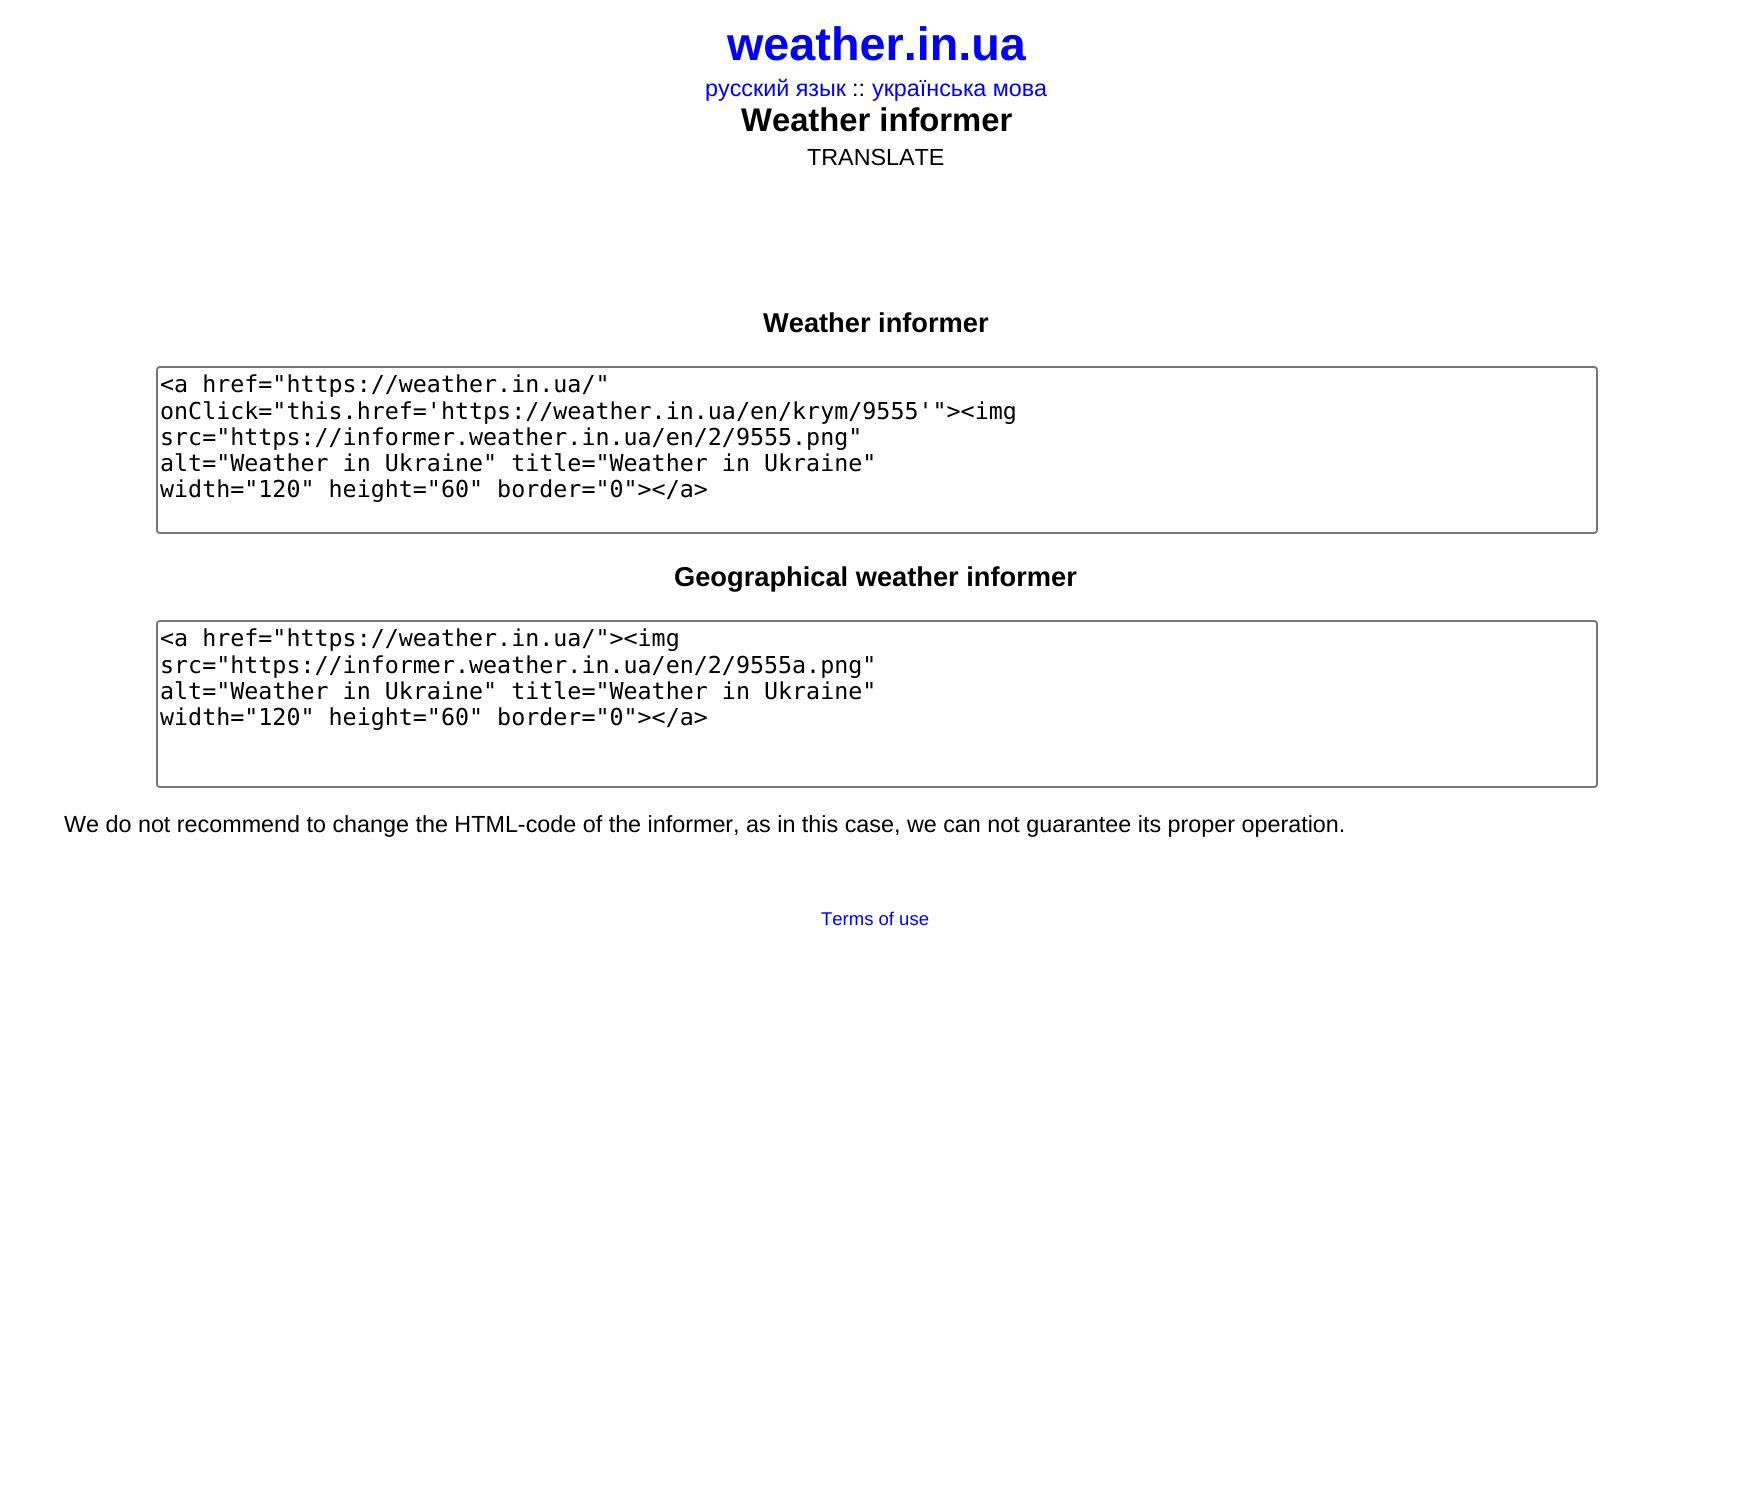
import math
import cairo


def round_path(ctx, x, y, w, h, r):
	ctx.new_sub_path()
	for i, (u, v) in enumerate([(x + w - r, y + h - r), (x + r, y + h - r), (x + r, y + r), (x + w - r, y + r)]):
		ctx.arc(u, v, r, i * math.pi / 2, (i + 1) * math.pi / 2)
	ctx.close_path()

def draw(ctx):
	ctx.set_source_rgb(1, 1, 1)
	ctx.paint()
	ctx.select_font_face('Liberation Sans', cairo.FONT_SLANT_NORMAL, cairo.FONT_WEIGHT_BOLD)
	ctx.set_font_size(46.75)
	ctx.set_source_rgb(0, 0, 1)
	ctx.move_to(727, 60)
	ctx.show_text('weather.in.ua')
	ctx.select_font_face('Liberation Sans')
	ctx.set_font_size(23.33)
	ctx.move_to(705, 96)
	ctx.show_text('русский язык')
	ctx.set_source_rgb(0, 0, 0)
	ctx.move_to(852, 96)
	ctx.show_text('::')
	ctx.set_source_rgb(0, 0, 1)
	ctx.move_to(872, 96)
	ctx.show_text('українська мова')
	ctx.select_font_face('Liberation Sans', cairo.FONT_SLANT_NORMAL, cairo.FONT_WEIGHT_BOLD)
	ctx.set_font_size(32.75)
	ctx.set_source_rgb(0, 0, 0)
	ctx.move_to(741, 131)
	ctx.show_text('Weather informer')
	ctx.select_font_face('Liberation Sans')
	ctx.set_font_size(23.33)
	ctx.move_to(807, 165)
	ctx.show_text('TRANSLATE')
	ctx.select_font_face('Liberation Sans', cairo.FONT_SLANT_NORMAL, cairo.FONT_WEIGHT_BOLD)
	ctx.set_font_size(27.25)
	ctx.move_to(763, 332)
	ctx.show_text('Weather informer')
	round_path(ctx, 157, 367, 1440, 166, 3)
	ctx.set_source_rgb(0.463, 0.463, 0.463)
	ctx.stroke()
	ctx.select_font_face('DejaVu Sans Mono')
	ctx.set_font_size(23.33)
	ctx.set_source_rgb(0, 0, 0)
	for x, y, s in [
		(160, 392, '<a href="https://weather.in.ua/"'),
		(160, 419, 'onClick="this.href=\'https://weather.in.ua/en/krym/9555\'"><img'),
		(160, 445, 'src="https://informer.weather.in.ua/en/2/9555.png"'),
		(160, 471, 'alt="Weather in Ukraine" title="Weather in Ukraine"'),
		(160, 497, 'width="120" height="60" border="0"></a>'),
	]:
		ctx.move_to(x, y)
		ctx.show_text(s)
	ctx.select_font_face('Liberation Sans', cairo.FONT_SLANT_NORMAL, cairo.FONT_WEIGHT_BOLD)
	ctx.set_font_size(27.25)
	ctx.move_to(674, 586)
	ctx.show_text('Geographical weather informer')
	round_path(ctx, 157, 621, 1440, 166, 3)
	ctx.set_source_rgb(0.463, 0.463, 0.463)
	ctx.stroke()
	ctx.select_font_face('DejaVu Sans Mono')
	ctx.set_font_size(23.33)
	ctx.set_source_rgb(0, 0, 0)
	for x, y, s in [
		(160, 646, '<a href="https://weather.in.ua/"><img'),
		(160, 673, 'src="https://informer.weather.in.ua/en/2/9555a.png"'),
		(160, 699, 'alt="Weather in Ukraine" title="Weather in Ukraine"'),
		(160, 725, 'width="120" height="60" border="0"></a>'),
	]:
		ctx.move_to(x, y)
		ctx.show_text(s)
	ctx.select_font_face('Liberation Sans')
	ctx.move_to(64, 832)
	ctx.show_text('We do not recommend to change the HTML-code of the informer, as in this case, we can not guarantee its proper operation.')
	ctx.set_font_size(18.5)
	ctx.set_source_rgb(0, 0, 1)
	ctx.move_to(821, 925)
	ctx.show_text('Terms of use')


surface = cairo.ImageSurface(cairo.FORMAT_RGB24, 1751, 1505)
ctx = cairo.Context(surface)
options = cairo.FontOptions()
options.set_hint_metrics(cairo.HINT_METRICS_OFF)
options.set_hint_style(cairo.HINT_STYLE_NONE)
ctx.set_font_options(options)
ctx.set_miter_limit(4)
draw(ctx)
surface.write_to_png('image.png')
